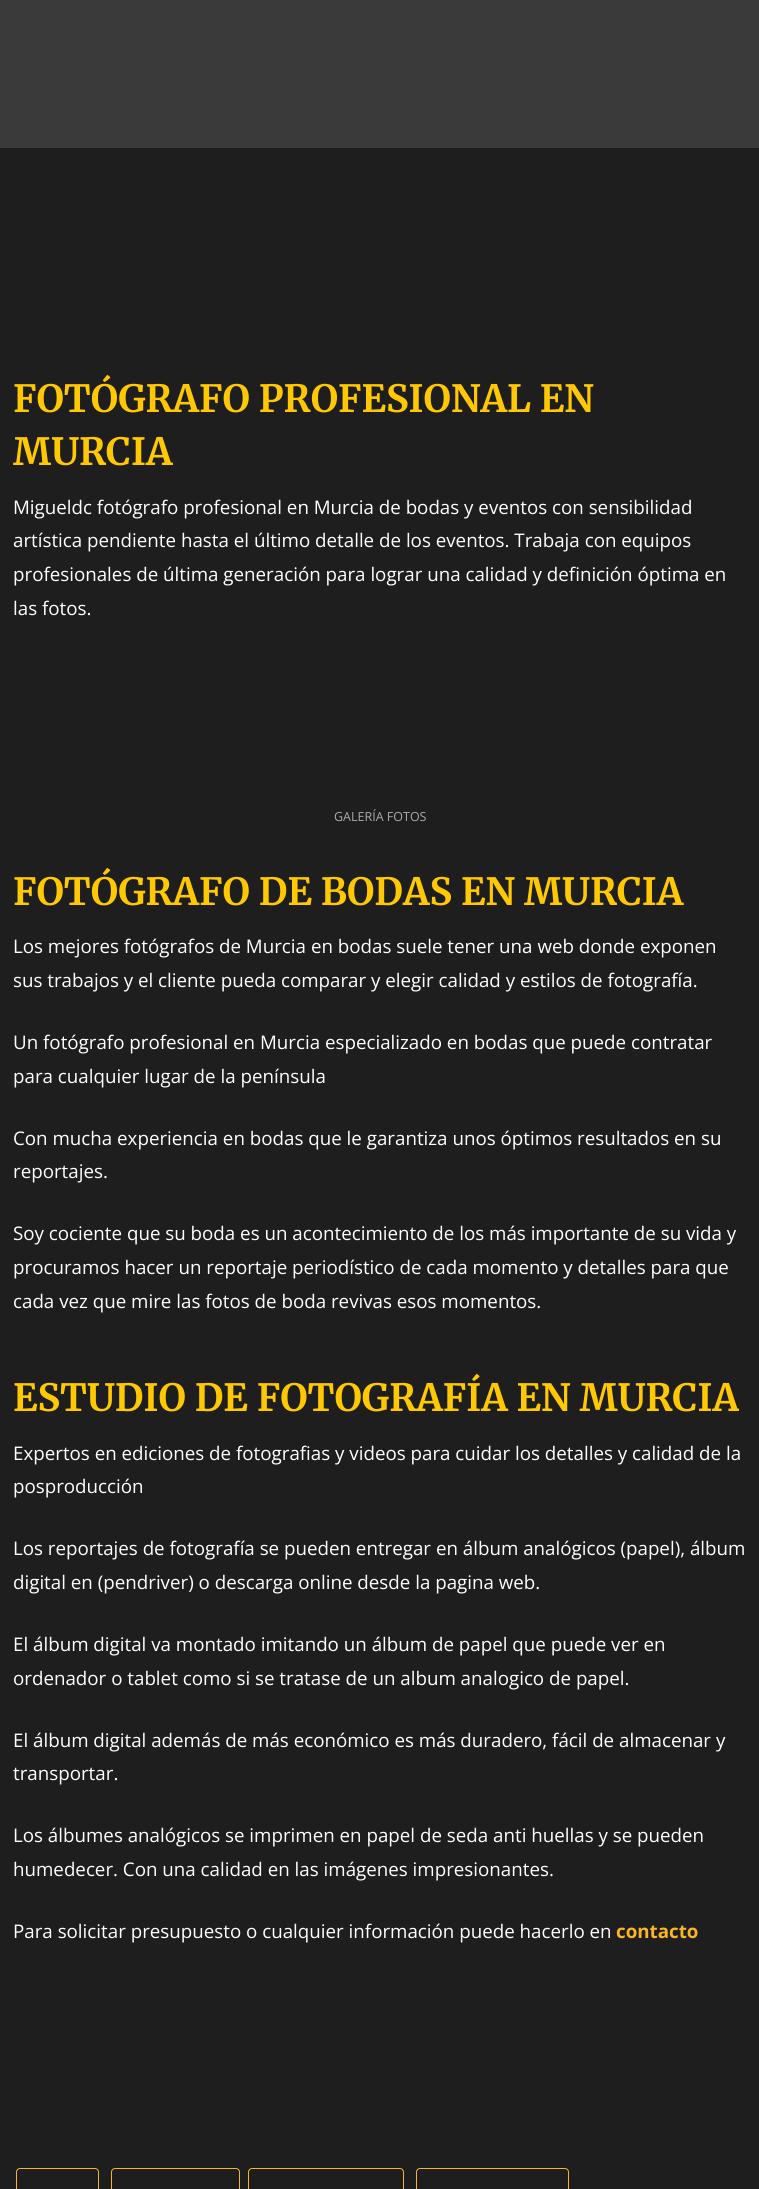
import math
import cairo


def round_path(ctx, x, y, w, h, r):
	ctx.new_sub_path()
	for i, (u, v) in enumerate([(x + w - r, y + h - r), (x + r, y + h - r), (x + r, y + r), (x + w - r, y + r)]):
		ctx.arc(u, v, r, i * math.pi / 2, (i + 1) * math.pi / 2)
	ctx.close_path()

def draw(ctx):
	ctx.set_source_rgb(0.118, 0.118, 0.118)
	ctx.paint()
	ctx.set_source_rgb(0.227, 0.227, 0.227)
	ctx.rectangle(0, 0, 759, 148)
	ctx.fill()
	ctx.select_font_face('Merriweather', cairo.FONT_SLANT_NORMAL, cairo.FONT_WEIGHT_BOLD)
	ctx.set_font_size(37.5)
	ctx.set_source_rgb(1, 0.784, 0)
	ctx.move_to(13, 412)
	ctx.show_text('FOTÓGRAFO PROFESIONAL EN')
	ctx.move_to(13, 465)
	ctx.show_text('MURCIA')
	ctx.select_font_face('Open Sans')
	ctx.set_font_size(18.75)
	ctx.set_source_rgb(1, 1, 1)
	for x, y, s in [
		(13, 514, 'Migueldc fotógrafo profesional en Murcia de bodas y eventos con sensibilidad'),
		(13, 547, 'artística pendiente hasta el último detalle de los eventos. Trabaja con equipos'),
		(13, 581, 'profesionales de última generación para lograr una calidad y definición óptima en'),
		(13, 615, 'las fotos.'),
	]:
		ctx.move_to(x, y)
		ctx.show_text(s)
	ctx.set_font_size(12.5)
	ctx.set_source_rgb(0.667, 0.667, 0.667)
	ctx.move_to(334, 821)
	ctx.show_text('GALERÍA FOTOS')
	ctx.select_font_face('Merriweather', cairo.FONT_SLANT_NORMAL, cairo.FONT_WEIGHT_BOLD)
	ctx.set_font_size(37.5)
	ctx.set_source_rgb(1, 0.784, 0)
	ctx.move_to(13, 905)
	ctx.show_text('FOTÓGRAFO DE BODAS EN MURCIA')
	ctx.select_font_face('Open Sans')
	ctx.set_font_size(18.75)
	ctx.set_source_rgb(1, 1, 1)
	for x, y, s in [
		(13, 953, 'Los mejores fotógrafos de Murcia en bodas suele tener una web donde exponen'),
		(13, 987, 'sus trabajos y el cliente pueda comparar y elegir calidad y estilos de fotografía.'),
		(13, 1049, 'Un fotógrafo profesional en Murcia especializado en bodas que puede contratar'),
		(13, 1083, 'para cualquier lugar de la península'),
		(13, 1145, 'Con mucha experiencia en bodas que le garantiza unos óptimos resultados en su'),
		(13, 1178, 'reportajes.'),
		(13, 1240, 'Soy cociente que su boda es un acontecimiento de los más importante de su vida y'),
		(13, 1274, 'procuramos hacer un reportaje periodístico de cada momento y detalles para que'),
		(13, 1308, 'cada vez que mire las fotos de boda revivas esos momentos.'),
	]:
		ctx.move_to(x, y)
		ctx.show_text(s)
	ctx.select_font_face('Merriweather', cairo.FONT_SLANT_NORMAL, cairo.FONT_WEIGHT_BOLD)
	ctx.set_font_size(37.5)
	ctx.set_source_rgb(1, 0.784, 0)
	ctx.move_to(13, 1411)
	ctx.show_text('ESTUDIO DE FOTOGRAFÍA EN MURCIA')
	ctx.select_font_face('Open Sans')
	ctx.set_font_size(18.75)
	ctx.set_source_rgb(1, 1, 1)
	for x, y, s in [
		(13, 1460, 'Expertos en ediciones de fotografias y videos para cuidar los detalles y calidad de la'),
		(13, 1493, 'posproducción'),
		(13, 1555, 'Los reportajes de fotografía se pueden entregar en álbum analógicos (papel), álbum'),
		(13, 1589, 'digital en (pendriver) o descarga online desde la pagina web.'),
		(13, 1651, 'El álbum digital va montado imitando un álbum de papel que puede ver en'),
		(13, 1685, 'ordenador o tablet como si se tratase de un album analogico de papel.'),
		(13, 1747, 'El álbum digital además de más económico es más duradero, fácil de almacenar y'),
		(13, 1780, 'transportar.'),
		(13, 1842, 'Los álbumes analógicos se imprimen en papel de seda anti huellas y se pueden'),
		(13, 1876, 'humedecer. Con una calidad en las imágenes impresionantes.'),
		(13, 1938, 'Para solicitar presupuesto o cualquier información puede hacerlo en'),
	]:
		ctx.move_to(x, y)
		ctx.show_text(s)
	ctx.select_font_face('Open Sans', cairo.FONT_SLANT_NORMAL, cairo.FONT_WEIGHT_BOLD)
	ctx.set_source_rgb(0.98, 0.71, 0.149)
	ctx.move_to(616, 1938)
	ctx.show_text('contacto')
	round_path(ctx, 16.5, 2168.5, 82, 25, 3.5)
	ctx.set_line_width(1)
	ctx.stroke()
	round_path(ctx, 111.5, 2168.5, 128, 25, 3.5)
	ctx.stroke()
	round_path(ctx, 248.5, 2168.5, 155, 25, 3.5)
	ctx.stroke()
	round_path(ctx, 416.5, 2168.5, 152, 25, 3.5)
	ctx.stroke()


surface = cairo.ImageSurface(cairo.FORMAT_RGB24, 759, 2189)
ctx = cairo.Context(surface)
options = cairo.FontOptions()
options.set_hint_metrics(cairo.HINT_METRICS_OFF)
options.set_hint_style(cairo.HINT_STYLE_NONE)
ctx.set_font_options(options)
ctx.set_miter_limit(4)
draw(ctx)
surface.write_to_png('image.png')
